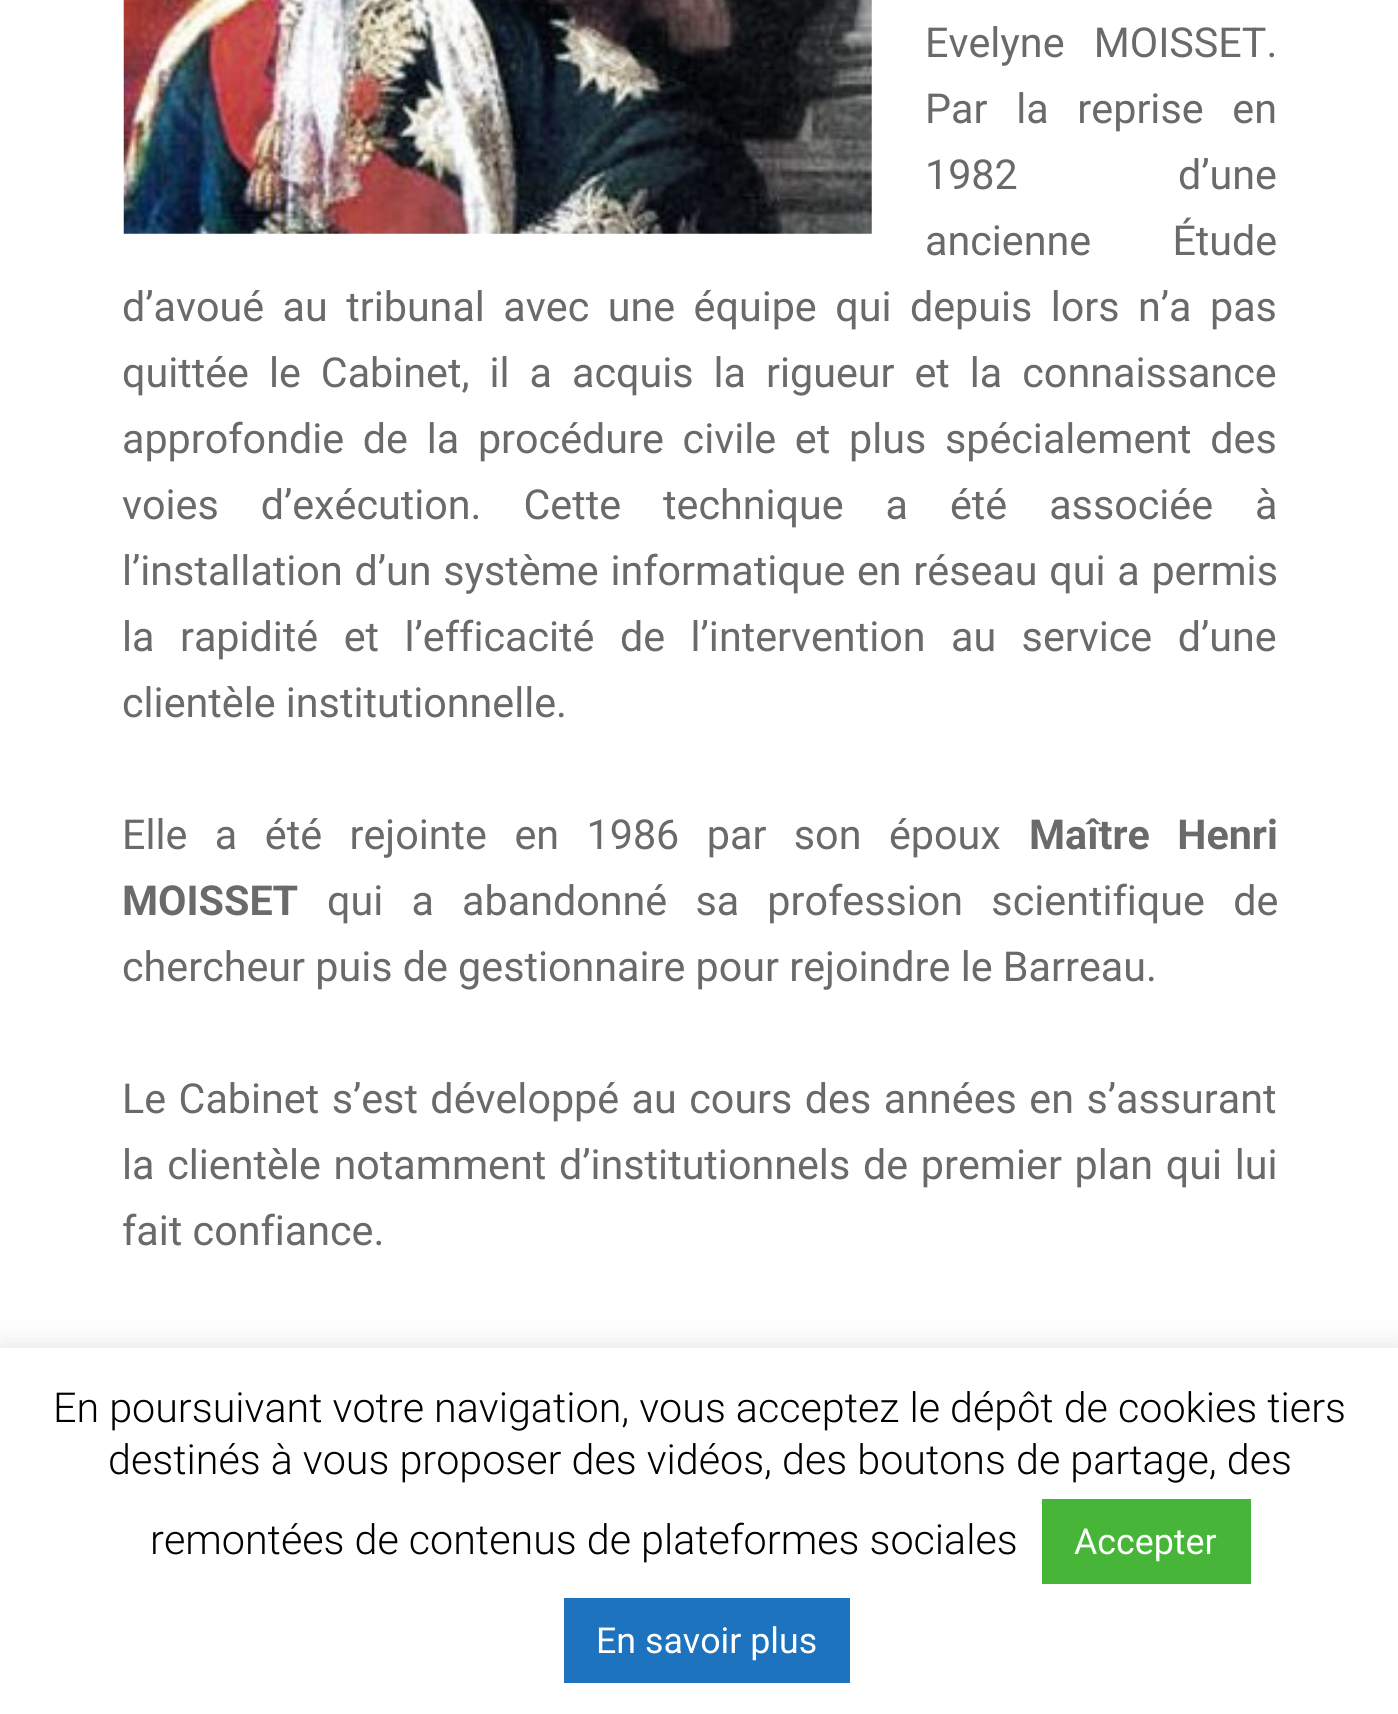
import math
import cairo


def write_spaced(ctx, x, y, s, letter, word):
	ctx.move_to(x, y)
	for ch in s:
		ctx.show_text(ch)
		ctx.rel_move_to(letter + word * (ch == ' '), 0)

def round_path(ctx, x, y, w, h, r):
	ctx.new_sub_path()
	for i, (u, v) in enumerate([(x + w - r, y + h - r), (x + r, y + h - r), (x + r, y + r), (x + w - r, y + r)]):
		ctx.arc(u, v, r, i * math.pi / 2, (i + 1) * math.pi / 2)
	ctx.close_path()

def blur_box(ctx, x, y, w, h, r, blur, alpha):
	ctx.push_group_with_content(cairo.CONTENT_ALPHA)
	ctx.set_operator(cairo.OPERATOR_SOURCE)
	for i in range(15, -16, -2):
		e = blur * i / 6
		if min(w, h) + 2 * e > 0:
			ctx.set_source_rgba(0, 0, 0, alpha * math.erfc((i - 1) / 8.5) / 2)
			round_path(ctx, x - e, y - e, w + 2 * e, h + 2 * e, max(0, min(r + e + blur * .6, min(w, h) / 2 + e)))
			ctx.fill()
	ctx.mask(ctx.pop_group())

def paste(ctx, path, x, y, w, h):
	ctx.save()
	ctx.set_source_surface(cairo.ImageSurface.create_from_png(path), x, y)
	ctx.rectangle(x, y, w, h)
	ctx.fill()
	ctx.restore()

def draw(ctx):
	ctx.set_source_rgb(1, 1, 1)
	ctx.paint()
	paste(ctx, 'media/1.png', 123, 0, 749, 234)
	ctx.select_font_face('Roboto')
	ctx.set_font_size(41.25)
	ctx.set_source_rgb(0.416, 0.416, 0.416)
	write_spaced(ctx, 925, 57, 'Evelyne MOISSET.', 0, 19)
	write_spaced(ctx, 925, 123, 'Par la reprise en', 0, 18.5)
	write_spaced(ctx, 925, 189, '1982 d’une', 0, 150)
	write_spaced(ctx, 925, 255, 'ancienne Étude', 0, 71)
	write_spaced(ctx, 122, 321, 'd’avoué au tribunal avec une équipe qui depuis lors n’a pas', 0, 8.25)
	write_spaced(ctx, 122, 387, 'quittée le Cabinet, il a acquis la rigueur et la connaissance', 0, 9.75)
	write_spaced(ctx, 122, 453, 'approfondie de la procédure civile et plus spécialement des', 0, 8.5)
	write_spaced(ctx, 122, 519, 'voies d’exécution. Cette technique a été associée à', 0, 31.75)
	write_spaced(ctx, 122, 585, 'l’installation d’un système informatique en réseau qui a permis', 0, 1.5)
	write_spaced(ctx, 122, 651, 'la rapidité et l’efficacité de l’intervention au service d’une', 0, 15.25)
	ctx.move_to(122, 717)
	ctx.show_text('clientèle institutionnelle.')
	write_spaced(ctx, 122, 849, 'Elle a été rejointe en 1986 par son époux', 0, 17.25)
	ctx.select_font_face('Roboto', cairo.FONT_SLANT_NORMAL, cairo.FONT_WEIGHT_BOLD)
	write_spaced(ctx, 1029, 849, 'Maître Henri', 0, 17.25)
	ctx.move_to(122, 915)
	ctx.show_text('MOISSET')
	ctx.select_font_face('Roboto')
	write_spaced(ctx, 327, 915, 'qui a abandonné sa profession scientifique de', 0, 18)
	ctx.move_to(122, 981)
	ctx.show_text('chercheur puis de gestionnaire pour rejoindre le Barreau.')
	write_spaced(ctx, 122, 1113, 'Le Cabinet s’est développé au cours des années en s’assurant', 0, 2.25)
	write_spaced(ctx, 122, 1179, 'la clientèle notamment d’institutionnels de premier plan qui lui', 0, 2.5)
	ctx.move_to(122, 1245)
	ctx.show_text('fait confiance.')
	ctx.set_source_rgb(0.675, 0.671, 0.671)
	blur_box(ctx, 0, 1345, 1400, 368, 0, 14, 0.3)
	ctx.set_source_rgb(1, 1, 1)
	ctx.rectangle(0, 1348, 1398, 366)
	ctx.fill()
	ctx.select_font_face('Roboto Light')
	ctx.set_source_rgb(0, 0, 0)
	for x, y, s in [
		(53, 1422, 'En poursuivant votre navigation, vous acceptez le dépôt de cookies tiers'),
		(108, 1474, 'destinés à vous proposer des vidéos, des boutons de partage, des'),
		(150, 1554, 'remontées de contenus de plateformes sociales'),
	]:
		ctx.move_to(x, y)
		ctx.show_text(s)
	ctx.set_source_rgb(0.275, 0.71, 0.22)
	ctx.rectangle(1042, 1499, 209, 85)
	ctx.fill()
	ctx.select_font_face('Roboto')
	ctx.set_font_size(35.75)
	ctx.set_source_rgb(1, 1, 1)
	ctx.move_to(1074, 1554)
	ctx.show_text('Accepter')
	ctx.set_source_rgb(0.118, 0.451, 0.745)
	ctx.rectangle(564, 1598, 286, 85)
	ctx.fill()
	ctx.set_source_rgb(1, 1, 1)
	ctx.move_to(596, 1653)
	ctx.show_text('En savoir plus')


surface = cairo.ImageSurface(cairo.FORMAT_RGB24, 1398, 1714)
ctx = cairo.Context(surface)
options = cairo.FontOptions()
options.set_hint_metrics(cairo.HINT_METRICS_OFF)
options.set_hint_style(cairo.HINT_STYLE_NONE)
ctx.set_font_options(options)
ctx.set_miter_limit(4)
draw(ctx)
surface.write_to_png('image.png')
